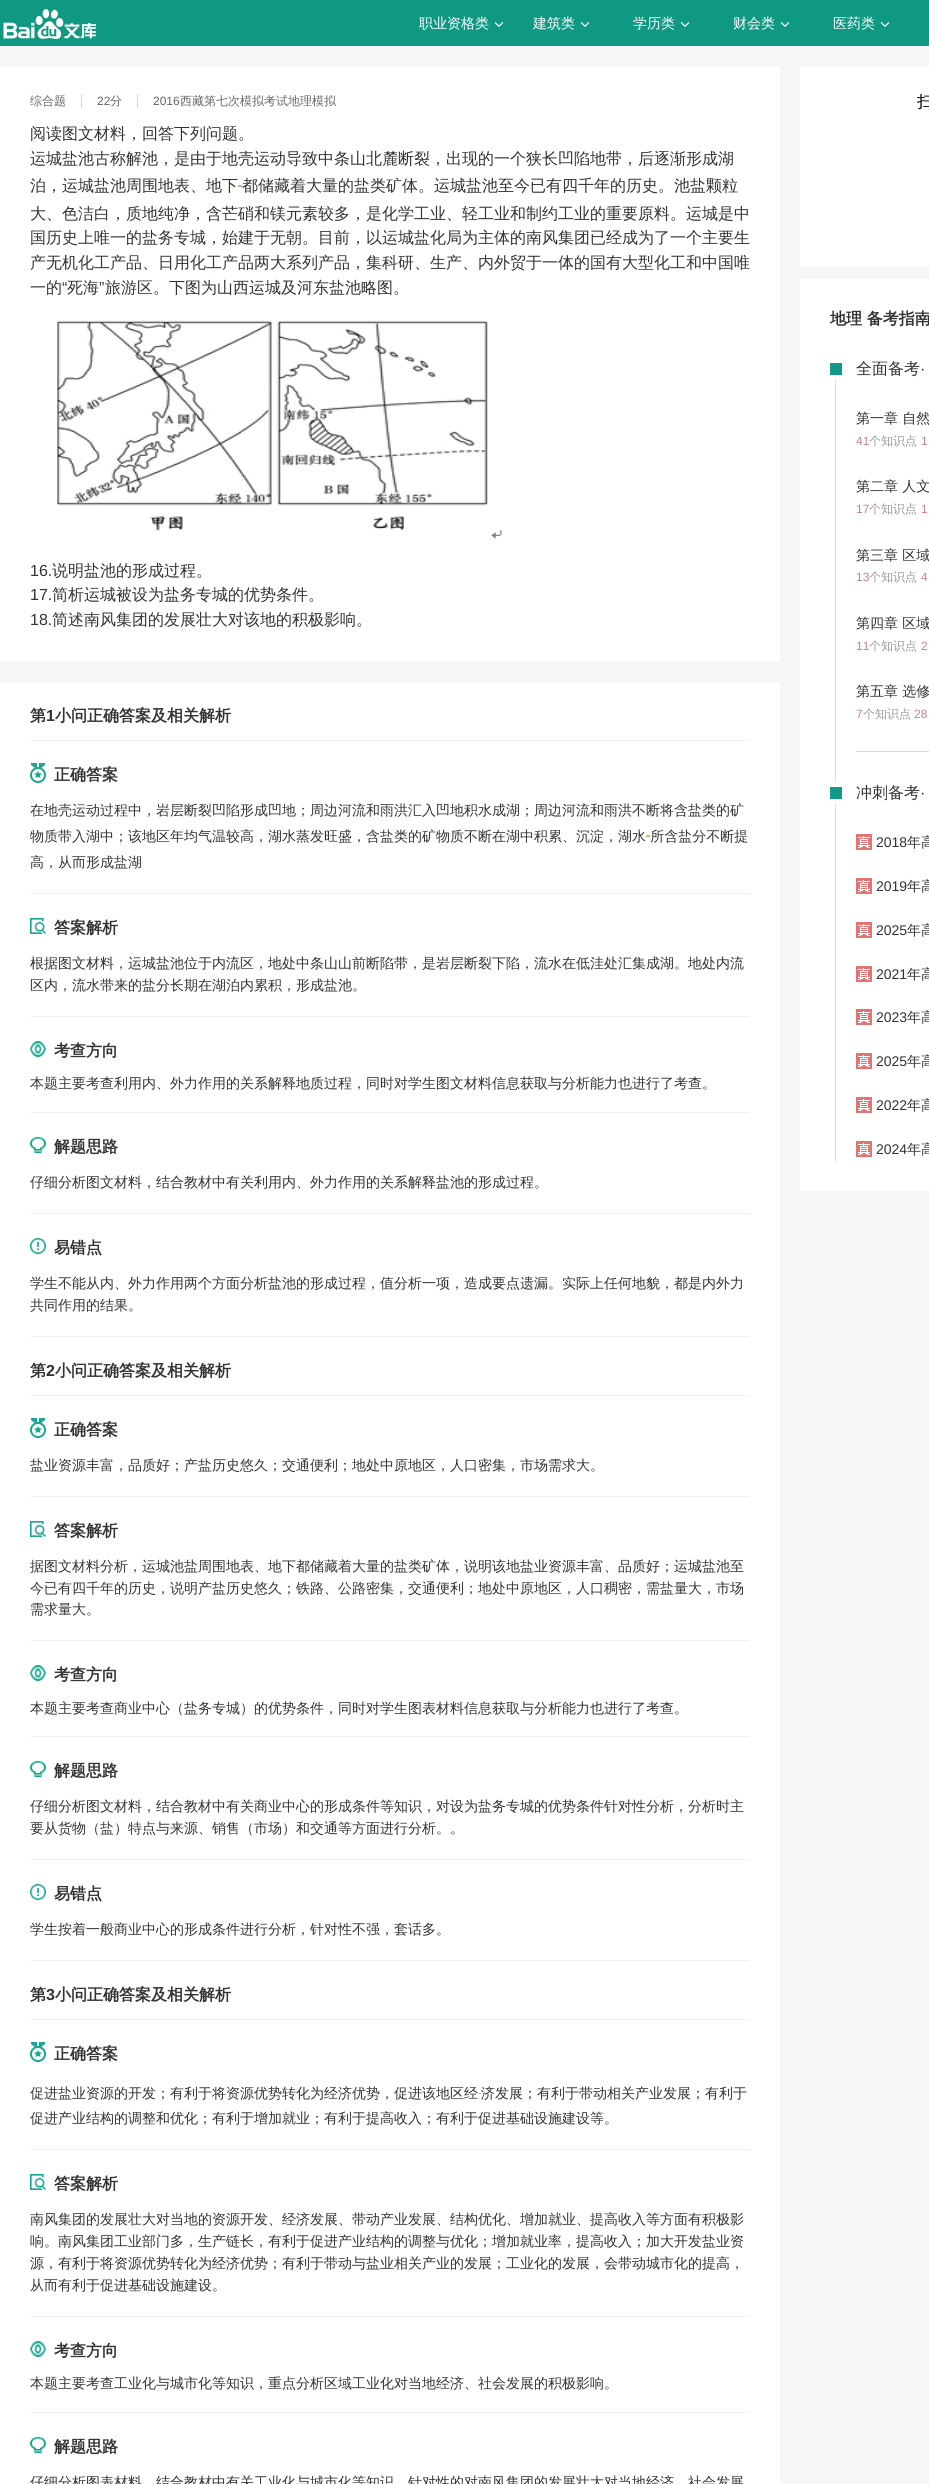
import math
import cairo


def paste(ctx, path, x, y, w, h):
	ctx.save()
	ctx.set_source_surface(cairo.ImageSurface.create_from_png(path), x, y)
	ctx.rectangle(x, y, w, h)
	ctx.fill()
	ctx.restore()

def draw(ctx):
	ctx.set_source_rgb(0.961, 0.961, 0.961)
	ctx.paint()
	ctx.set_source_rgb(0.059, 0.6, 0.51)
	ctx.rectangle(0, 0, 929, 46)
	ctx.fill()
	paste(ctx, 'media/1.png', 3, 9, 93, 30)
	ctx.select_font_face('WenQuanYi Zen Hei Medium')
	ctx.set_font_size(14)
	ctx.set_source_rgb(1, 1, 1)
	ctx.move_to(419, 28)
	ctx.show_text('职业资格类')
	paste(ctx, 'media/2.png', 494, 22, 10, 5)
	ctx.move_to(533, 28)
	ctx.show_text('建筑类')
	paste(ctx, 'media/2.png', 580, 22, 10, 5)
	ctx.move_to(633, 28)
	ctx.show_text('学历类')
	paste(ctx, 'media/2.png', 680, 22, 10, 5)
	ctx.move_to(733, 28)
	ctx.show_text('财会类')
	paste(ctx, 'media/2.png', 780, 22, 10, 5)
	ctx.move_to(833, 28)
	ctx.show_text('医药类')
	paste(ctx, 'media/2.png', 880, 22, 10, 5)
	ctx.rectangle(0, 66, 780, 596)
	ctx.fill()
	ctx.set_font_size(12)
	ctx.set_source_rgb(0.4, 0.4, 0.4)
	ctx.move_to(30, 105)
	ctx.show_text('综合题')
	ctx.set_source_rgb(0.827, 0.827, 0.827)
	ctx.rectangle(81, 94, 1, 14)
	ctx.fill()
	ctx.select_font_face('Liberation Sans')
	ctx.set_source_rgb(0.4, 0.4, 0.4)
	ctx.move_to(97, 105)
	ctx.show_text('22')
	ctx.select_font_face('WenQuanYi Zen Hei Medium')
	ctx.move_to(110, 105)
	ctx.show_text('分')
	ctx.set_source_rgb(0.827, 0.827, 0.827)
	ctx.rectangle(137, 94, 1, 14)
	ctx.fill()
	ctx.select_font_face('Liberation Sans')
	ctx.set_source_rgb(0.4, 0.4, 0.4)
	ctx.move_to(153, 105)
	ctx.show_text('2016')
	ctx.select_font_face('WenQuanYi Zen Hei Medium')
	ctx.move_to(180, 105)
	ctx.show_text('西藏第七次模拟考试地理模拟')
	ctx.set_font_size(16)
	ctx.set_source_rgb(0.2, 0.2, 0.2)
	for x, y, s in [
		(30, 139, '阅读图文材料，回答下列问题。'),
		(30, 164, '运城盐池古称解池，是由于地壳运动导致中条山北麓断裂，出现的一个狭长凹陷地带，后逐渐形成湖'),
		(30, 191, '泊，运城盐池周围地表、地下'),
	]:
		ctx.move_to(x, y)
		ctx.show_text(s)
	paste(ctx, 'media/3.png', 238, 185, 4, 2)
	for x, y, s in [
		(242, 191, '都储藏着大量的盐类矿体。运城盐池至今已有四千年的历史。池盐颗粒'),
		(30, 219, '大、色洁白，质地纯净，含芒硝和镁元素较多，是化学工业、轻工业和制约工业的重要原料。运城是中'),
		(30, 243, '国历史上唯一的盐务专城，始建于无朝。目前，以运城盐化局为主体的南风集团已经成为了一个主要生'),
		(30, 268, '产无机化工产品、日用化工产品两大系列产品，集科研、生产、内外贸于一体的国有大型化工和中国唯'),
		(30, 293, '一的'),
	]:
		ctx.move_to(x, y)
		ctx.show_text(s)
	ctx.select_font_face('Liberation Sans')
	ctx.move_to(62, 293)
	ctx.show_text('“')
	ctx.select_font_face('WenQuanYi Zen Hei Medium')
	ctx.move_to(67, 293)
	ctx.show_text('死海')
	ctx.select_font_face('Liberation Sans')
	ctx.move_to(99, 293)
	ctx.show_text('”')
	ctx.select_font_face('WenQuanYi Zen Hei Medium')
	ctx.move_to(105, 293)
	ctx.show_text('旅游区。下图为山西运城及河东盐池略图。')
	paste(ctx, 'media/4.png', 56, 320, 446, 219)
	ctx.select_font_face('Liberation Sans')
	ctx.move_to(30, 576)
	ctx.show_text('16.')
	ctx.select_font_face('WenQuanYi Zen Hei Medium')
	ctx.move_to(52, 576)
	ctx.show_text('说明盐池的形成过程。')
	ctx.select_font_face('Liberation Sans')
	ctx.move_to(30, 600)
	ctx.show_text('17.')
	ctx.select_font_face('WenQuanYi Zen Hei Medium')
	ctx.move_to(52, 600)
	ctx.show_text('简析运城被设为盐务专城的优势条件。')
	ctx.select_font_face('Liberation Sans')
	ctx.move_to(30, 625)
	ctx.show_text('18.')
	ctx.select_font_face('WenQuanYi Zen Hei Medium')
	ctx.move_to(52, 625)
	ctx.show_text('简述南风集团的发展壮大对该地的积极影响。')
	ctx.set_source_rgb(1, 1, 1)
	ctx.rectangle(0, 682, 780, 1802)
	ctx.fill()
	ctx.set_source_rgb(0.949, 0.949, 0.949)
	ctx.rectangle(30, 740, 720, 1)
	ctx.fill()
	ctx.select_font_face('WenQuanYi Zen Hei', cairo.FONT_SLANT_NORMAL, cairo.FONT_WEIGHT_BOLD)
	ctx.set_source_rgb(0.2, 0.2, 0.2)
	ctx.move_to(30, 721)
	ctx.show_text('第')
	ctx.select_font_face('Liberation Sans', cairo.FONT_SLANT_NORMAL, cairo.FONT_WEIGHT_BOLD)
	ctx.move_to(46, 721)
	ctx.show_text('1')
	ctx.select_font_face('WenQuanYi Zen Hei', cairo.FONT_SLANT_NORMAL, cairo.FONT_WEIGHT_BOLD)
	ctx.move_to(55, 721)
	ctx.show_text('小问正确答案及相关解析')
	paste(ctx, 'media/5.png', 30, 763, 16, 20)
	ctx.move_to(54, 780)
	ctx.show_text('正确答案')
	ctx.set_source_rgb(0.949, 0.949, 0.949)
	ctx.rectangle(30, 893, 720, 1)
	ctx.fill()
	ctx.select_font_face('WenQuanYi Zen Hei Medium')
	ctx.set_font_size(14)
	ctx.set_source_rgb(0.2, 0.2, 0.2)
	ctx.move_to(30, 815)
	ctx.show_text('在地壳运动过程中，岩层断裂凹陷形成凹地；周边河流和雨洪汇入凹地积水成湖；周边河流和雨洪不断将含盐类的矿')
	ctx.move_to(30, 841)
	ctx.show_text('物质带入湖中；该地区年均气温较高，湖水蒸发旺盛，含盐类的矿物质不断在湖中积累、沉淀，湖水 所含盐分不断提')
	paste(ctx, 'media/6.png', 646, 835, 4, 2)
	ctx.move_to(30, 867)
	ctx.show_text('高，从而形成盐湖')
	paste(ctx, 'media/7.png', 30, 918, 16, 16)
	ctx.select_font_face('WenQuanYi Zen Hei', cairo.FONT_SLANT_NORMAL, cairo.FONT_WEIGHT_BOLD)
	ctx.set_font_size(16)
	ctx.move_to(54, 933)
	ctx.show_text('答案解析')
	ctx.set_source_rgb(0.949, 0.949, 0.949)
	ctx.rectangle(30, 1016, 720, 1)
	ctx.fill()
	ctx.select_font_face('WenQuanYi Zen Hei Medium')
	ctx.set_font_size(14)
	ctx.set_source_rgb(0.2, 0.2, 0.2)
	ctx.move_to(30, 968)
	ctx.show_text('根据图文材料，运城盐池位于内流区，地处中条山山前断陷带，是岩层断裂下陷，流水在低洼处汇集成湖。地处内流')
	ctx.move_to(30, 990)
	ctx.show_text('区内，流水带来的盐分长期在湖泊内累积，形成盐池。')
	paste(ctx, 'media/8.png', 30, 1041, 16, 16)
	ctx.select_font_face('WenQuanYi Zen Hei', cairo.FONT_SLANT_NORMAL, cairo.FONT_WEIGHT_BOLD)
	ctx.set_font_size(16)
	ctx.move_to(54, 1056)
	ctx.show_text('考查方向')
	ctx.set_source_rgb(0.949, 0.949, 0.949)
	ctx.rectangle(30, 1112, 720, 1)
	ctx.fill()
	ctx.select_font_face('WenQuanYi Zen Hei Medium')
	ctx.set_font_size(14)
	ctx.set_source_rgb(0.2, 0.2, 0.2)
	ctx.move_to(30, 1088)
	ctx.show_text('本题主要考查利用内、外力作用的关系解释地质过程，同时对学生图文材料信息获取与分析能力也进行了考查。')
	paste(ctx, 'media/9.png', 30, 1137, 16, 16)
	ctx.select_font_face('WenQuanYi Zen Hei', cairo.FONT_SLANT_NORMAL, cairo.FONT_WEIGHT_BOLD)
	ctx.set_font_size(16)
	ctx.move_to(54, 1152)
	ctx.show_text('解题思路')
	ctx.set_source_rgb(0.949, 0.949, 0.949)
	ctx.rectangle(30, 1213, 720, 1)
	ctx.fill()
	ctx.select_font_face('WenQuanYi Zen Hei Medium')
	ctx.set_font_size(14)
	ctx.set_source_rgb(0.2, 0.2, 0.2)
	ctx.move_to(30, 1187)
	ctx.show_text('仔细分析图文材料，结合教材中有关利用内、外力作用的关系解释盐池的形成过程。')
	paste(ctx, 'media/10.png', 30, 1238, 16, 16)
	ctx.select_font_face('WenQuanYi Zen Hei', cairo.FONT_SLANT_NORMAL, cairo.FONT_WEIGHT_BOLD)
	ctx.set_font_size(16)
	ctx.move_to(54, 1253)
	ctx.show_text('易错点')
	ctx.set_source_rgb(0.949, 0.949, 0.949)
	ctx.rectangle(30, 1336, 720, 1)
	ctx.fill()
	ctx.select_font_face('WenQuanYi Zen Hei Medium')
	ctx.set_font_size(14)
	ctx.set_source_rgb(0.2, 0.2, 0.2)
	ctx.move_to(30, 1288)
	ctx.show_text('学生不能从内、外力作用两个方面分析盐池的形成过程，值分析一项，造成要点遗漏。实际上任何地貌，都是内外力')
	ctx.move_to(30, 1310)
	ctx.show_text('共同作用的结果。')
	ctx.set_source_rgb(0.949, 0.949, 0.949)
	ctx.rectangle(30, 1395, 720, 1)
	ctx.fill()
	ctx.select_font_face('WenQuanYi Zen Hei', cairo.FONT_SLANT_NORMAL, cairo.FONT_WEIGHT_BOLD)
	ctx.set_font_size(16)
	ctx.set_source_rgb(0.2, 0.2, 0.2)
	ctx.move_to(30, 1376)
	ctx.show_text('第')
	ctx.select_font_face('Liberation Sans', cairo.FONT_SLANT_NORMAL, cairo.FONT_WEIGHT_BOLD)
	ctx.move_to(46, 1376)
	ctx.show_text('2')
	ctx.select_font_face('WenQuanYi Zen Hei', cairo.FONT_SLANT_NORMAL, cairo.FONT_WEIGHT_BOLD)
	ctx.move_to(55, 1376)
	ctx.show_text('小问正确答案及相关解析')
	paste(ctx, 'media/5.png', 30, 1418, 16, 20)
	ctx.move_to(54, 1435)
	ctx.show_text('正确答案')
	ctx.set_source_rgb(0.949, 0.949, 0.949)
	ctx.rectangle(30, 1496, 720, 1)
	ctx.fill()
	ctx.select_font_face('WenQuanYi Zen Hei Medium')
	ctx.set_font_size(14)
	ctx.set_source_rgb(0.2, 0.2, 0.2)
	ctx.move_to(30, 1470)
	ctx.show_text('盐业资源丰富，品质好；产盐历史悠久；交通便利；地处中原地区，人口密集，市场需求大。')
	paste(ctx, 'media/7.png', 30, 1521, 16, 16)
	ctx.select_font_face('WenQuanYi Zen Hei', cairo.FONT_SLANT_NORMAL, cairo.FONT_WEIGHT_BOLD)
	ctx.set_font_size(16)
	ctx.move_to(54, 1536)
	ctx.show_text('答案解析')
	ctx.set_source_rgb(0.949, 0.949, 0.949)
	ctx.rectangle(30, 1640, 720, 1)
	ctx.fill()
	ctx.select_font_face('WenQuanYi Zen Hei Medium')
	ctx.set_font_size(14)
	ctx.set_source_rgb(0.2, 0.2, 0.2)
	for x, y, s in [
		(30, 1571, '据图文材料分析，运城池盐周围地表、地下都储藏着大量的盐类矿体，说明该地盐业资源丰富、品质好；运城盐池至'),
		(30, 1593, '今已有四千年的历史，说明产盐历史悠久；铁路、公路密集，交通便利；地处中原地区，人口稠密，需盐量大，市场'),
		(30, 1614, '需求量大。'),
	]:
		ctx.move_to(x, y)
		ctx.show_text(s)
	paste(ctx, 'media/11.png', 30, 1665, 16, 16)
	ctx.select_font_face('WenQuanYi Zen Hei', cairo.FONT_SLANT_NORMAL, cairo.FONT_WEIGHT_BOLD)
	ctx.set_font_size(16)
	ctx.move_to(54, 1680)
	ctx.show_text('考查方向')
	ctx.set_source_rgb(0.949, 0.949, 0.949)
	ctx.rectangle(30, 1736, 720, 1)
	ctx.fill()
	ctx.select_font_face('WenQuanYi Zen Hei Medium')
	ctx.set_font_size(14)
	ctx.set_source_rgb(0.2, 0.2, 0.2)
	ctx.move_to(30, 1713)
	ctx.show_text('本题主要考查商业中心（盐务专城）的优势条件，同时对学生图表材料信息获取与分析能力也进行了考查。')
	paste(ctx, 'media/9.png', 30, 1761, 16, 16)
	ctx.select_font_face('WenQuanYi Zen Hei', cairo.FONT_SLANT_NORMAL, cairo.FONT_WEIGHT_BOLD)
	ctx.set_font_size(16)
	ctx.move_to(54, 1776)
	ctx.show_text('解题思路')
	ctx.set_source_rgb(0.949, 0.949, 0.949)
	ctx.rectangle(30, 1859, 720, 1)
	ctx.fill()
	ctx.select_font_face('WenQuanYi Zen Hei Medium')
	ctx.set_font_size(14)
	ctx.set_source_rgb(0.2, 0.2, 0.2)
	ctx.move_to(30, 1811)
	ctx.show_text('仔细分析图文材料，结合教材中有关商业中心的形成条件等知识，对设为盐务专城的优势条件针对性分析，分析时主')
	ctx.move_to(30, 1833)
	ctx.show_text('要从货物（盐）特点与来源、销售（市场）和交通等方面进行分析。。')
	paste(ctx, 'media/10.png', 30, 1884, 16, 16)
	ctx.select_font_face('WenQuanYi Zen Hei', cairo.FONT_SLANT_NORMAL, cairo.FONT_WEIGHT_BOLD)
	ctx.set_font_size(16)
	ctx.move_to(54, 1899)
	ctx.show_text('易错点')
	ctx.set_source_rgb(0.949, 0.949, 0.949)
	ctx.rectangle(30, 1960, 720, 1)
	ctx.fill()
	ctx.select_font_face('WenQuanYi Zen Hei Medium')
	ctx.set_font_size(14)
	ctx.set_source_rgb(0.2, 0.2, 0.2)
	ctx.move_to(30, 1934)
	ctx.show_text('学生按着一般商业中心的形成条件进行分析，针对性不强，套话多。')
	ctx.set_source_rgb(0.949, 0.949, 0.949)
	ctx.rectangle(30, 2019, 720, 1)
	ctx.fill()
	ctx.select_font_face('WenQuanYi Zen Hei', cairo.FONT_SLANT_NORMAL, cairo.FONT_WEIGHT_BOLD)
	ctx.set_font_size(16)
	ctx.set_source_rgb(0.2, 0.2, 0.2)
	ctx.move_to(30, 2000)
	ctx.show_text('第')
	ctx.select_font_face('Liberation Sans', cairo.FONT_SLANT_NORMAL, cairo.FONT_WEIGHT_BOLD)
	ctx.move_to(46, 2000)
	ctx.show_text('3')
	ctx.select_font_face('WenQuanYi Zen Hei', cairo.FONT_SLANT_NORMAL, cairo.FONT_WEIGHT_BOLD)
	ctx.move_to(55, 2000)
	ctx.show_text('小问正确答案及相关解析')
	paste(ctx, 'media/5.png', 30, 2042, 16, 20)
	ctx.move_to(54, 2059)
	ctx.show_text('正确答案')
	ctx.set_source_rgb(0.949, 0.949, 0.949)
	ctx.rectangle(30, 2149, 720, 1)
	ctx.fill()
	ctx.select_font_face('WenQuanYi Zen Hei Medium')
	ctx.set_font_size(14)
	ctx.set_source_rgb(0.2, 0.2, 0.2)
	ctx.move_to(30, 2098)
	ctx.show_text('促进盐业资源的开发；有利于将资源优势转化为经济优势，促进该地区经')
	paste(ctx, 'media/12.png', 478, 2093, 3, 1)
	ctx.move_to(481, 2098)
	ctx.show_text('济发展；有利于带动相关产业发展；有利于')
	ctx.move_to(30, 2123)
	ctx.show_text('促进产业结构的调整和优化；有利于增加就业；有利于提高收入；有利于促进基础设施建设等。')
	paste(ctx, 'media/7.png', 30, 2174, 16, 16)
	ctx.select_font_face('WenQuanYi Zen Hei', cairo.FONT_SLANT_NORMAL, cairo.FONT_WEIGHT_BOLD)
	ctx.set_font_size(16)
	ctx.move_to(54, 2189)
	ctx.show_text('答案解析')
	ctx.set_source_rgb(0.949, 0.949, 0.949)
	ctx.rectangle(30, 2316, 720, 1)
	ctx.fill()
	ctx.select_font_face('WenQuanYi Zen Hei Medium')
	ctx.set_font_size(14)
	ctx.set_source_rgb(0.2, 0.2, 0.2)
	for x, y, s in [
		(30, 2224, '南风集团的发展壮大对当地的资源开发、经济发展、带动产业发展、结构优化、增加就业、提高收入等方面有积极影'),
		(30, 2246, '响。南风集团工业部门多，生产链长，有利于促进产业结构的调整与优化；增加就业率，提高收入；加大开发盐业资'),
		(30, 2268, '源，有利于将资源优势转化为经济优势；有利于带动与盐业相关产业的发展；工业化的发展，会带动城市化的提高，'),
		(30, 2290, '从而有利于促进基础设施建设。'),
	]:
		ctx.move_to(x, y)
		ctx.show_text(s)
	paste(ctx, 'media/13.png', 30, 2341, 16, 16)
	ctx.select_font_face('WenQuanYi Zen Hei', cairo.FONT_SLANT_NORMAL, cairo.FONT_WEIGHT_BOLD)
	ctx.set_font_size(16)
	ctx.move_to(54, 2356)
	ctx.show_text('考查方向')
	ctx.set_source_rgb(0.949, 0.949, 0.949)
	ctx.rectangle(30, 2412, 720, 1)
	ctx.fill()
	ctx.select_font_face('WenQuanYi Zen Hei Medium')
	ctx.set_font_size(14)
	ctx.set_source_rgb(0.2, 0.2, 0.2)
	ctx.move_to(30, 2388)
	ctx.show_text('本题主要考查工业化与城市化等知识，重点分析区域工业化对当地经济、社会发展的积极影响。')
	paste(ctx, 'media/9.png', 30, 2437, 16, 16)
	ctx.select_font_face('WenQuanYi Zen Hei', cairo.FONT_SLANT_NORMAL, cairo.FONT_WEIGHT_BOLD)
	ctx.set_font_size(16)
	ctx.move_to(54, 2452)
	ctx.show_text('解题思路')
	ctx.select_font_face('WenQuanYi Zen Hei Medium')
	ctx.set_font_size(14)
	ctx.move_to(30, 2487)
	ctx.show_text('仔细分析图表材料，结合教材中有关工业化与城市化等知识，针对性的对南风集团的发展壮大对当地经济、社会发展')
	ctx.set_source_rgb(1, 1, 1)
	ctx.rectangle(800, 66, 129, 201)
	ctx.fill()
	ctx.set_font_size(16)
	ctx.set_source_rgb(0, 0, 0)
	ctx.move_to(917, 107)
	ctx.show_text('扫')
	ctx.set_source_rgb(1, 1, 1)
	ctx.rectangle(800, 279, 129, 912)
	ctx.fill()
	ctx.select_font_face('WenQuanYi Zen Hei', cairo.FONT_SLANT_NORMAL, cairo.FONT_WEIGHT_BOLD)
	ctx.set_source_rgb(0.2, 0.2, 0.2)
	ctx.move_to(830, 324)
	ctx.show_text('地理 备考指南')
	ctx.set_source_rgb(0.078, 0.6, 0.529)
	ctx.rectangle(830, 363, 12, 12)
	ctx.fill()
	ctx.select_font_face('WenQuanYi Zen Hei Medium')
	ctx.set_source_rgb(0.2, 0.2, 0.2)
	ctx.move_to(856, 374)
	ctx.show_text('全面备考')
	ctx.select_font_face('Liberation Sans')
	ctx.move_to(920, 374)
	ctx.show_text('·')
	ctx.set_source_rgb(0.867, 0.867, 0.867)
	ctx.rectangle(835, 380, 1, 402)
	ctx.fill()
	ctx.select_font_face('WenQuanYi Zen Hei Medium')
	ctx.set_font_size(14)
	ctx.set_source_rgb(0.2, 0.2, 0.2)
	ctx.move_to(856, 423)
	ctx.show_text('第一章 自然')
	ctx.select_font_face('Liberation Sans')
	ctx.set_font_size(12)
	ctx.set_source_rgb(0.773, 0.514, 0.514)
	ctx.move_to(856, 445)
	ctx.show_text('41')
	ctx.select_font_face('WenQuanYi Zen Hei Medium')
	ctx.set_source_rgb(0.6, 0.6, 0.6)
	ctx.move_to(869, 445)
	ctx.show_text('个知识点')
	ctx.select_font_face('Liberation Sans')
	ctx.set_source_rgb(0.773, 0.514, 0.514)
	ctx.move_to(921, 445)
	ctx.show_text('1')
	ctx.select_font_face('WenQuanYi Zen Hei Medium')
	ctx.set_font_size(14)
	ctx.set_source_rgb(0.2, 0.2, 0.2)
	ctx.move_to(856, 491)
	ctx.show_text('第二章 人文')
	ctx.select_font_face('Liberation Sans')
	ctx.set_font_size(12)
	ctx.set_source_rgb(0.773, 0.514, 0.514)
	ctx.move_to(856, 513)
	ctx.show_text('17')
	ctx.select_font_face('WenQuanYi Zen Hei Medium')
	ctx.set_source_rgb(0.6, 0.6, 0.6)
	ctx.move_to(869, 513)
	ctx.show_text('个知识点')
	ctx.select_font_face('Liberation Sans')
	ctx.set_source_rgb(0.773, 0.514, 0.514)
	ctx.move_to(921, 513)
	ctx.show_text('1')
	ctx.select_font_face('WenQuanYi Zen Hei Medium')
	ctx.set_font_size(14)
	ctx.set_source_rgb(0.2, 0.2, 0.2)
	ctx.move_to(856, 560)
	ctx.show_text('第三章 区域')
	ctx.select_font_face('Liberation Sans')
	ctx.set_font_size(12)
	ctx.set_source_rgb(0.773, 0.514, 0.514)
	ctx.move_to(856, 581)
	ctx.show_text('13')
	ctx.select_font_face('WenQuanYi Zen Hei Medium')
	ctx.set_source_rgb(0.6, 0.6, 0.6)
	ctx.move_to(869, 581)
	ctx.show_text('个知识点')
	ctx.select_font_face('Liberation Sans')
	ctx.set_source_rgb(0.773, 0.514, 0.514)
	ctx.move_to(921, 581)
	ctx.show_text('4')
	ctx.select_font_face('WenQuanYi Zen Hei Medium')
	ctx.set_font_size(14)
	ctx.set_source_rgb(0.2, 0.2, 0.2)
	ctx.move_to(856, 628)
	ctx.show_text('第四章 区域')
	ctx.select_font_face('Liberation Sans')
	ctx.set_font_size(12)
	ctx.set_source_rgb(0.773, 0.514, 0.514)
	ctx.move_to(856, 650)
	ctx.show_text('11')
	ctx.select_font_face('WenQuanYi Zen Hei Medium')
	ctx.set_source_rgb(0.6, 0.6, 0.6)
	ctx.move_to(869, 650)
	ctx.show_text('个知识点')
	ctx.select_font_face('Liberation Sans')
	ctx.set_source_rgb(0.773, 0.514, 0.514)
	ctx.move_to(921, 650)
	ctx.show_text('2')
	ctx.set_source_rgb(0.867, 0.867, 0.867)
	ctx.rectangle(856, 751, 73, 1)
	ctx.fill()
	ctx.select_font_face('WenQuanYi Zen Hei Medium')
	ctx.set_font_size(14)
	ctx.set_source_rgb(0.2, 0.2, 0.2)
	ctx.move_to(856, 696)
	ctx.show_text('第五章 选修')
	ctx.select_font_face('Liberation Sans')
	ctx.set_font_size(12)
	ctx.set_source_rgb(0.773, 0.514, 0.514)
	ctx.move_to(856, 718)
	ctx.show_text('7')
	ctx.select_font_face('WenQuanYi Zen Hei Medium')
	ctx.set_source_rgb(0.6, 0.6, 0.6)
	ctx.move_to(863, 718)
	ctx.show_text('个知识点')
	ctx.select_font_face('Liberation Sans')
	ctx.set_source_rgb(0.773, 0.514, 0.514)
	ctx.move_to(914, 718)
	ctx.show_text('28')
	ctx.set_source_rgb(0.078, 0.6, 0.529)
	ctx.rectangle(830, 787, 12, 12)
	ctx.fill()
	ctx.select_font_face('WenQuanYi Zen Hei Medium')
	ctx.set_font_size(16)
	ctx.set_source_rgb(0.2, 0.2, 0.2)
	ctx.move_to(856, 798)
	ctx.show_text('冲刺备考')
	ctx.select_font_face('Liberation Sans')
	ctx.move_to(920, 798)
	ctx.show_text('·')
	ctx.set_source_rgb(0.867, 0.867, 0.867)
	ctx.rectangle(835, 804, 1, 357)
	ctx.fill()
	paste(ctx, 'media/14.png', 856, 834, 16, 16)
	ctx.set_font_size(14)
	ctx.set_source_rgb(0.2, 0.2, 0.2)
	ctx.move_to(876, 847)
	ctx.show_text('2018')
	ctx.select_font_face('WenQuanYi Zen Hei Medium')
	ctx.move_to(907, 847)
	ctx.show_text('年高')
	paste(ctx, 'media/14.png', 856, 878, 16, 16)
	ctx.select_font_face('Liberation Sans')
	ctx.move_to(876, 891)
	ctx.show_text('2019')
	ctx.select_font_face('WenQuanYi Zen Hei Medium')
	ctx.move_to(907, 891)
	ctx.show_text('年高')
	paste(ctx, 'media/14.png', 856, 922, 16, 16)
	ctx.select_font_face('Liberation Sans')
	ctx.move_to(876, 935)
	ctx.show_text('2025')
	ctx.select_font_face('WenQuanYi Zen Hei Medium')
	ctx.move_to(907, 935)
	ctx.show_text('年高')
	paste(ctx, 'media/14.png', 856, 966, 16, 16)
	ctx.select_font_face('Liberation Sans')
	ctx.move_to(876, 979)
	ctx.show_text('2021')
	ctx.select_font_face('WenQuanYi Zen Hei Medium')
	ctx.move_to(907, 979)
	ctx.show_text('年高')
	paste(ctx, 'media/14.png', 856, 1009, 16, 16)
	ctx.select_font_face('Liberation Sans')
	ctx.move_to(876, 1022)
	ctx.show_text('2023')
	ctx.select_font_face('WenQuanYi Zen Hei Medium')
	ctx.move_to(907, 1022)
	ctx.show_text('年高')
	paste(ctx, 'media/14.png', 856, 1053, 16, 16)
	ctx.select_font_face('Liberation Sans')
	ctx.move_to(876, 1066)
	ctx.show_text('2025')
	ctx.select_font_face('WenQuanYi Zen Hei Medium')
	ctx.move_to(907, 1066)
	ctx.show_text('年高')
	paste(ctx, 'media/14.png', 856, 1097, 16, 16)
	ctx.select_font_face('Liberation Sans')
	ctx.move_to(876, 1110)
	ctx.show_text('2022')
	ctx.select_font_face('WenQuanYi Zen Hei Medium')
	ctx.move_to(907, 1110)
	ctx.show_text('年高')
	paste(ctx, 'media/14.png', 856, 1141, 16, 16)
	ctx.select_font_face('Liberation Sans')
	ctx.move_to(876, 1154)
	ctx.show_text('2024')
	ctx.select_font_face('WenQuanYi Zen Hei Medium')
	ctx.move_to(907, 1154)
	ctx.show_text('年高')


surface = cairo.ImageSurface(cairo.FORMAT_RGB24, 929, 2484)
ctx = cairo.Context(surface)
options = cairo.FontOptions()
options.set_hint_metrics(cairo.HINT_METRICS_OFF)
options.set_hint_style(cairo.HINT_STYLE_NONE)
ctx.set_font_options(options)
ctx.set_miter_limit(4)
draw(ctx)
surface.write_to_png('image.png')
